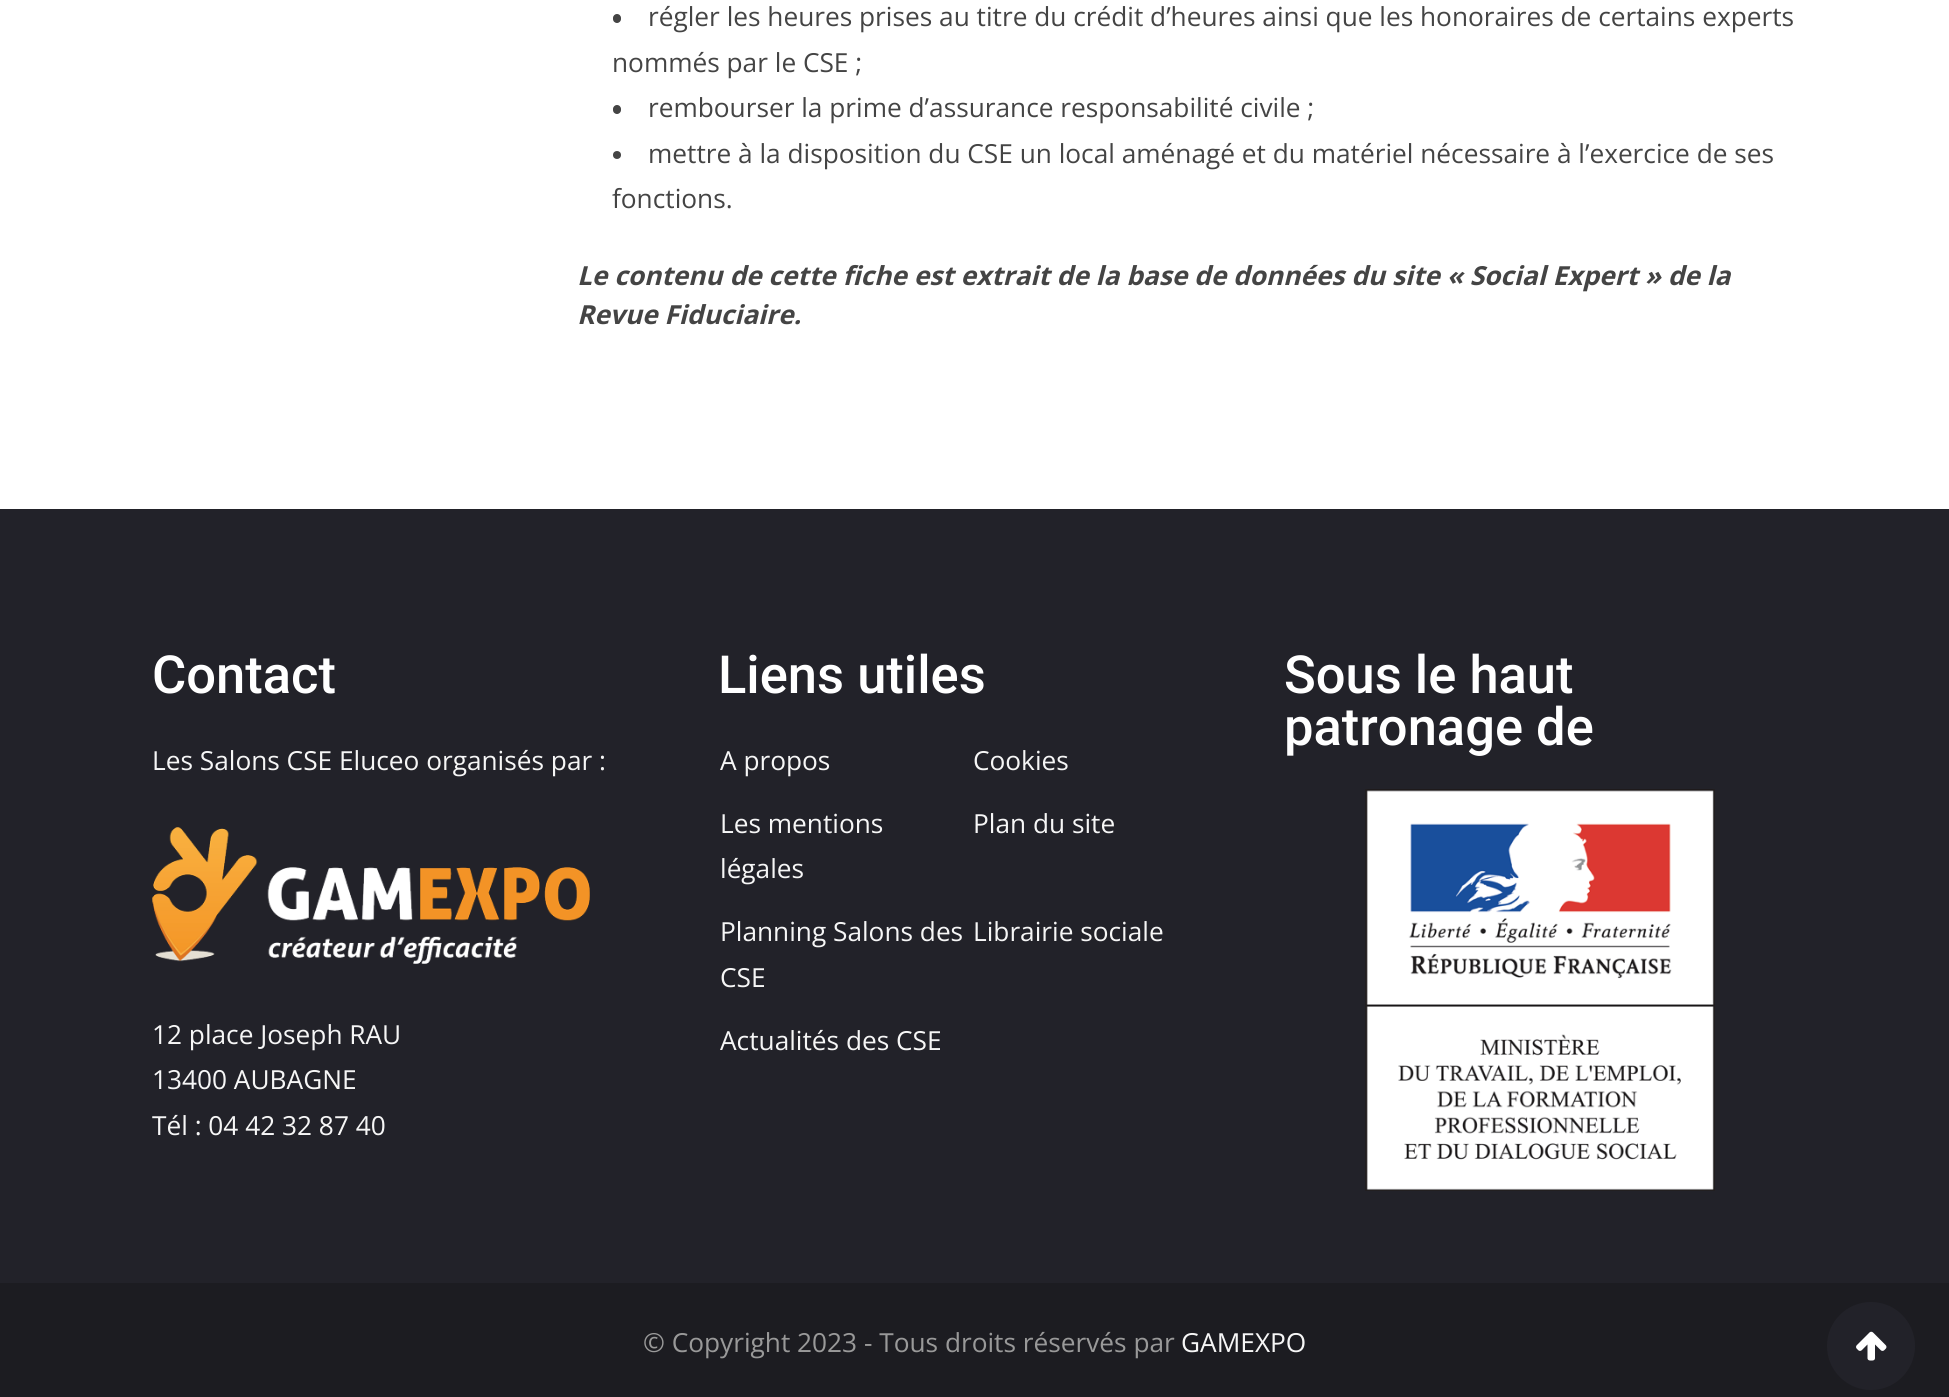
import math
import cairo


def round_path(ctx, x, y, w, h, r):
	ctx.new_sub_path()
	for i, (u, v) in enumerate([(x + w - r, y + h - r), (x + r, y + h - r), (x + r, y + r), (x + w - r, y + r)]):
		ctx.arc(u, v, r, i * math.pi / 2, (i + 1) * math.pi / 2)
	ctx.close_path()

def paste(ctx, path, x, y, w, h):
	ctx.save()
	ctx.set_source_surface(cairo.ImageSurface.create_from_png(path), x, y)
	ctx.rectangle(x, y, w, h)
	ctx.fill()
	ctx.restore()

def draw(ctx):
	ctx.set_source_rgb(1, 1, 1)
	ctx.paint()
	ctx.set_source_rgb(0.267, 0.267, 0.267)
	round_path(ctx, 613, 14, 8, 9, 4)
	ctx.fill()
	ctx.select_font_face('Open Sans')
	ctx.set_font_size(26.25)
	ctx.move_to(648, 26)
	ctx.show_text('régler les heures prises au titre du crédit d’heures ainsi que les honoraires de certains experts')
	ctx.move_to(612, 72)
	ctx.show_text('nommés par le CSE ;')
	round_path(ctx, 613, 105, 8, 9, 4)
	ctx.fill()
	ctx.move_to(648, 117)
	ctx.show_text('rembourser la prime d’assurance responsabilité civile ;')
	ctx.new_path()
	ctx.arc(617, 155, 4, 0, 2 * math.pi)
	ctx.fill()
	ctx.move_to(648, 163)
	ctx.show_text('mettre à la disposition du CSE un local aménagé et du matériel nécessaire à l’exercice de ses')
	ctx.move_to(612, 208)
	ctx.show_text('fonctions.')
	ctx.select_font_face('Open Sans', cairo.FONT_SLANT_ITALIC, cairo.FONT_WEIGHT_BOLD)
	ctx.move_to(577, 285)
	ctx.show_text('Le contenu de cette fiche est extrait de la base de données du site « Social Expert » de la')
	ctx.move_to(577, 324)
	ctx.show_text('Revue Fiduciaire.')
	ctx.set_source_rgb(0.133, 0.133, 0.161)
	ctx.rectangle(0, 509, 1949, 774)
	ctx.fill()
	ctx.select_font_face('Roboto Medium')
	ctx.set_font_size(52.5)
	ctx.set_source_rgb(1, 1, 1)
	ctx.move_to(152, 693)
	ctx.show_text('Contact')
	ctx.select_font_face('Open Sans')
	ctx.set_font_size(26.25)
	ctx.set_source_rgb(0.961, 0.961, 0.961)
	ctx.move_to(152, 770)
	ctx.show_text('Les Salons CSE Eluceo organisés par :')
	paste(ctx, 'media/1.png', 152, 827, 438, 137)
	for x, y, s in [
		(152, 1044, '12 place Joseph RAU'),
		(152, 1089, '13400 AUBAGNE'),
		(152, 1135, 'Tél : 04 42 32 87 40'),
	]:
		ctx.move_to(x, y)
		ctx.show_text(s)
	ctx.select_font_face('Roboto Medium')
	ctx.set_font_size(52.5)
	ctx.set_source_rgb(1, 1, 1)
	ctx.move_to(718, 693)
	ctx.show_text('Liens utiles')
	ctx.select_font_face('Open Sans')
	ctx.set_font_size(26.25)
	ctx.set_source_rgb(0.961, 0.961, 0.961)
	for x, y, s in [
		(720, 770, 'A propos'),
		(973, 770, 'Cookies'),
		(720, 833, 'Les mentions'),
		(720, 878, 'légales'),
		(973, 833, 'Plan du site'),
		(720, 941, 'Planning Salons des'),
		(720, 987, 'CSE'),
		(973, 941, 'Librairie sociale'),
		(720, 1050, 'Actualités des CSE'),
	]:
		ctx.move_to(x, y)
		ctx.show_text(s)
	ctx.select_font_face('Roboto Medium')
	ctx.set_font_size(52.5)
	ctx.set_source_rgb(1, 1, 1)
	ctx.move_to(1284, 693)
	ctx.show_text('Sous le haut')
	ctx.move_to(1284, 745)
	ctx.show_text('patronage de')
	paste(ctx, 'media/2.png', 1365, 789, 350, 402)
	ctx.set_source_rgb(0.11, 0.11, 0.129)
	ctx.rectangle(0, 1283, 1949, 114)
	ctx.fill()
	ctx.select_font_face('Open Sans')
	ctx.set_font_size(26.25)
	ctx.set_source_rgb(0.6, 0.6, 0.6)
	ctx.move_to(643, 1352)
	ctx.show_text('© Copyright 2023 - Tous droits réservés par')
	ctx.set_source_rgb(0.961, 0.961, 0.961)
	ctx.move_to(1181, 1352)
	ctx.show_text('GAMEXPO')
	ctx.set_source_rgb(0.133, 0.133, 0.161)
	ctx.new_path()
	ctx.arc(1871, 1346, 44, 0, 2 * math.pi)
	ctx.fill()
	paste(ctx, 'media/3.png', 1856, 1331, 31, 30)


surface = cairo.ImageSurface(cairo.FORMAT_RGB24, 1949, 1397)
ctx = cairo.Context(surface)
options = cairo.FontOptions()
options.set_hint_metrics(cairo.HINT_METRICS_OFF)
options.set_hint_style(cairo.HINT_STYLE_NONE)
ctx.set_font_options(options)
ctx.set_miter_limit(4)
draw(ctx)
surface.write_to_png('image.png')
